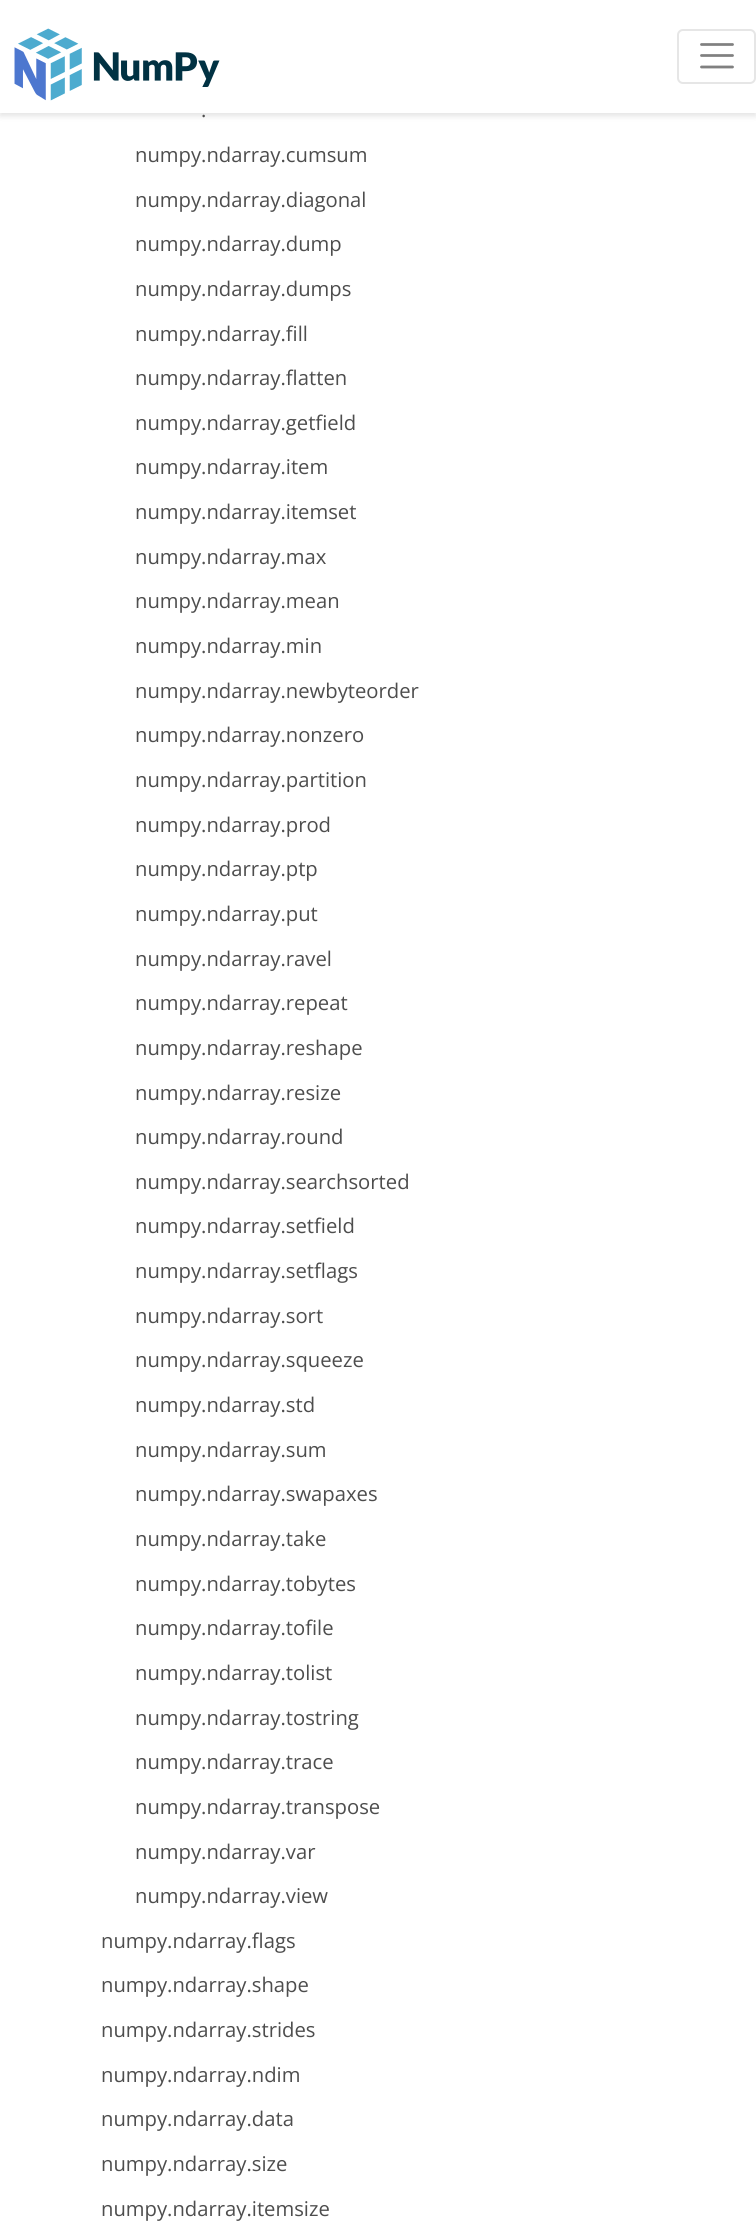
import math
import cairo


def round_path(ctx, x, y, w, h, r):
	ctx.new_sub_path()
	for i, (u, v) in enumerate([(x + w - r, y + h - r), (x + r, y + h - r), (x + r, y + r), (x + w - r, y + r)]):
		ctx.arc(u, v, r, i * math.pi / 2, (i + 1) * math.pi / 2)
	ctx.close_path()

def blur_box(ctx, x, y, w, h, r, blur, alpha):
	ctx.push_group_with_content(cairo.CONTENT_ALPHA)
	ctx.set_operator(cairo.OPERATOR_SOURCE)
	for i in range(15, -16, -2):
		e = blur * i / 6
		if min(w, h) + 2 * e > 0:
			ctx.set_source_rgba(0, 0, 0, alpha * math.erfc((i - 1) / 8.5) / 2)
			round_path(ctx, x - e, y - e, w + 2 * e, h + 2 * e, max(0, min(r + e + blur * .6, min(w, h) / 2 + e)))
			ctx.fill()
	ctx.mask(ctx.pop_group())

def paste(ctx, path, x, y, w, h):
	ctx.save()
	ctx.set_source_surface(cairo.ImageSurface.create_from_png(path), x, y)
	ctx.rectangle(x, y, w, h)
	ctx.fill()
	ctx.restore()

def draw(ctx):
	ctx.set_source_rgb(1, 1, 1)
	ctx.paint()
	ctx.set_source_rgb(0, 0, 0)
	blur_box(ctx, 0, 3, 756, 113, 0, 3, 0.11)
	ctx.set_source_rgb(1, 1, 1)
	ctx.rectangle(0, 0, 756, 113)
	ctx.fill()
	paste(ctx, 'media/1.png', 14, 28, 206, 73)
	round_path(ctx, 678, 30, 77, 53, 5)
	ctx.set_source_rgb(0.902, 0.902, 0.902)
	ctx.stroke()
	ctx.new_path()
	ctx.move_to(701.5, 44.5)
	ctx.line_to(732.5, 44.5)
	ctx.move_to(701.5, 55.5)
	ctx.line_to(732.5, 55.5)
	ctx.move_to(701.5, 67)
	ctx.line_to(732.5, 67)
	ctx.set_source_rgb(0.502, 0.502, 0.502)
	ctx.set_line_width(2.8)
	ctx.set_line_cap(cairo.LINE_CAP_ROUND)
	ctx.stroke()
	ctx.select_font_face('Open Sans')
	ctx.set_font_size(20.25)
	ctx.set_source_rgb(0.302, 0.302, 0.302)
	for x, y, s in [
		(201, 117, '.'),
		(135, 162, 'numpy.ndarray.cumsum'),
		(135, 207, 'numpy.ndarray.diagonal'),
		(135, 251, 'numpy.ndarray.dump'),
		(135, 296, 'numpy.ndarray.dumps'),
		(135, 341, 'numpy.ndarray.fill'),
		(135, 385, 'numpy.ndarray.flatten'),
		(135, 430, 'numpy.ndarray.getfield'),
		(135, 474, 'numpy.ndarray.item'),
		(135, 519, 'numpy.ndarray.itemset'),
		(135, 564, 'numpy.ndarray.max'),
		(135, 608, 'numpy.ndarray.mean'),
		(135, 653, 'numpy.ndarray.min'),
		(135, 698, 'numpy.ndarray.newbyteorder'),
		(135, 742, 'numpy.ndarray.nonzero'),
		(135, 787, 'numpy.ndarray.partition'),
		(135, 832, 'numpy.ndarray.prod'),
		(135, 876, 'numpy.ndarray.ptp'),
		(135, 921, 'numpy.ndarray.put'),
		(135, 966, 'numpy.ndarray.ravel'),
		(135, 1010, 'numpy.ndarray.repeat'),
		(135, 1055, 'numpy.ndarray.reshape'),
		(135, 1100, 'numpy.ndarray.resize'),
		(135, 1144, 'numpy.ndarray.round'),
		(135, 1189, 'numpy.ndarray.searchsorted'),
		(135, 1233, 'numpy.ndarray.setfield'),
		(135, 1278, 'numpy.ndarray.setflags'),
		(135, 1323, 'numpy.ndarray.sort'),
		(135, 1367, 'numpy.ndarray.squeeze'),
		(135, 1412, 'numpy.ndarray.std'),
		(135, 1457, 'numpy.ndarray.sum'),
		(135, 1501, 'numpy.ndarray.swapaxes'),
		(135, 1546, 'numpy.ndarray.take'),
		(135, 1591, 'numpy.ndarray.tobytes'),
		(135, 1635, 'numpy.ndarray.tofile'),
		(135, 1680, 'numpy.ndarray.tolist'),
		(135, 1725, 'numpy.ndarray.tostring'),
		(135, 1769, 'numpy.ndarray.trace'),
		(135, 1814, 'numpy.ndarray.transpose'),
		(135, 1859, 'numpy.ndarray.var'),
		(135, 1903, 'numpy.ndarray.view'),
		(101, 1948, 'numpy.ndarray.flags'),
		(101, 1992, 'numpy.ndarray.shape'),
		(101, 2037, 'numpy.ndarray.strides'),
		(101, 2082, 'numpy.ndarray.ndim'),
		(101, 2126, 'numpy.ndarray.data'),
		(101, 2171, 'numpy.ndarray.size'),
		(101, 2216, 'numpy.ndarray.itemsize'),
	]:
		ctx.move_to(x, y)
		ctx.show_text(s)


surface = cairo.ImageSurface(cairo.FORMAT_RGB24, 756, 2225)
ctx = cairo.Context(surface)
options = cairo.FontOptions()
options.set_hint_metrics(cairo.HINT_METRICS_OFF)
options.set_hint_style(cairo.HINT_STYLE_NONE)
ctx.set_font_options(options)
ctx.set_miter_limit(4)
draw(ctx)
surface.write_to_png('image.png')
